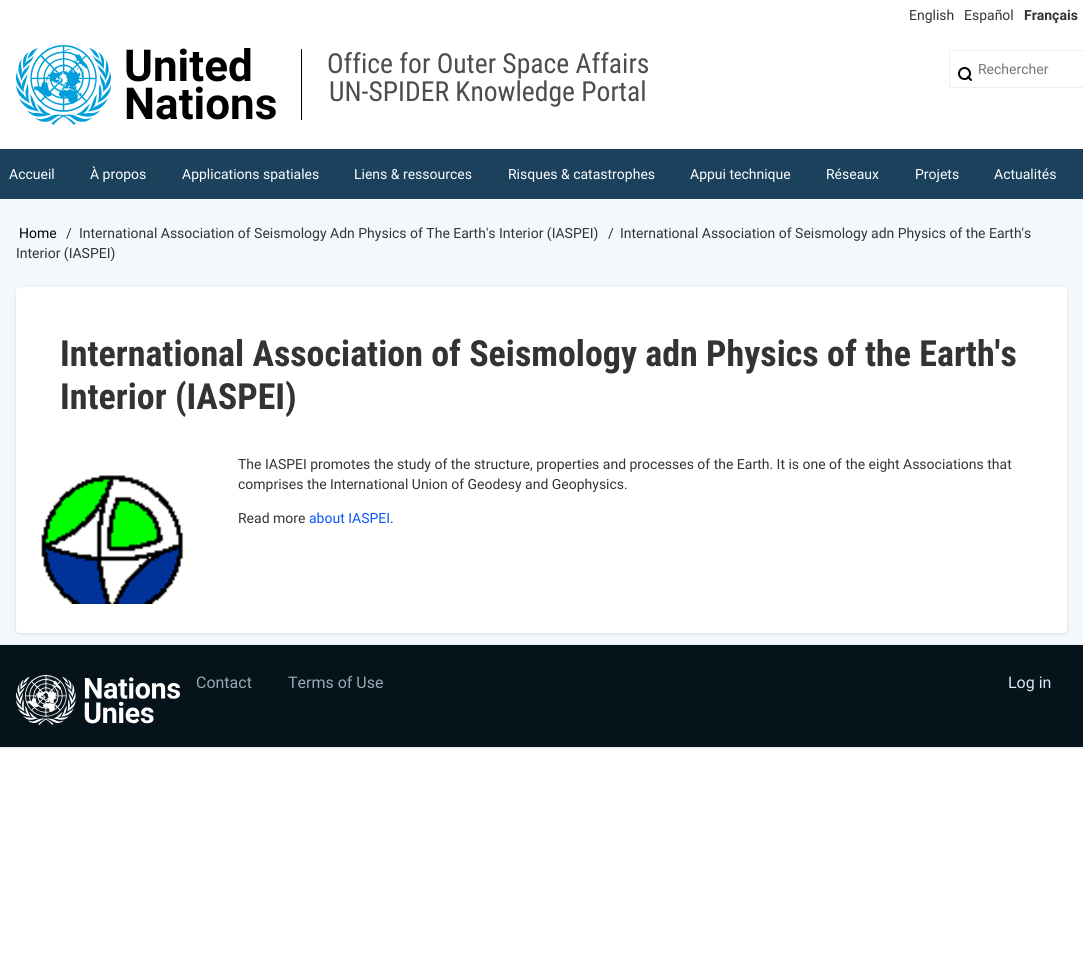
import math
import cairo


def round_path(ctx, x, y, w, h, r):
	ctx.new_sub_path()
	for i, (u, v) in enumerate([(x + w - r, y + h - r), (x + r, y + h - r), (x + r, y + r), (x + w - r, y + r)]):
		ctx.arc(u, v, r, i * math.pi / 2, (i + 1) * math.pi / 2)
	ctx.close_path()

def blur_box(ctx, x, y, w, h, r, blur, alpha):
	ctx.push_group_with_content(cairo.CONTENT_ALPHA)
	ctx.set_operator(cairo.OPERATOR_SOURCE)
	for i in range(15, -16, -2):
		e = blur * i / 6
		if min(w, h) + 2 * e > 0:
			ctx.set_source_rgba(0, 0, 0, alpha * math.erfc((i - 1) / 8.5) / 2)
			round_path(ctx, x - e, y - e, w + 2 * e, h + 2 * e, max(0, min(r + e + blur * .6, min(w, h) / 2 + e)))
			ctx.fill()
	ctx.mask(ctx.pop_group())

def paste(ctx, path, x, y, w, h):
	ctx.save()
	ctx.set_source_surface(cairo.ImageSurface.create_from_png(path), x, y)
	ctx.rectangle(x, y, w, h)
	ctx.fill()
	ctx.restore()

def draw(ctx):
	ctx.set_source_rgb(1, 1, 1)
	ctx.paint()
	ctx.select_font_face('Roboto')
	ctx.set_font_size(14)
	ctx.set_source_rgb(0.2, 0.2, 0.2)
	ctx.move_to(909, 20)
	ctx.show_text('English')
	ctx.move_to(964, 20)
	ctx.show_text('Español')
	ctx.select_font_face('Roboto', cairo.FONT_SLANT_NORMAL, cairo.FONT_WEIGHT_BOLD)
	ctx.move_to(1024, 20)
	ctx.show_text('Français')
	paste(ctx, 'media/1.png', 16, 45, 95, 80)
	ctx.set_font_size(44)
	ctx.set_source_rgb(0, 0, 0)
	ctx.move_to(124, 81)
	ctx.show_text('United')
	ctx.move_to(124, 119)
	ctx.show_text('Nations')
	ctx.rectangle(301, 49, 1, 71)
	ctx.fill()
	ctx.select_font_face('Roboto Condensed')
	ctx.set_font_size(27.6)
	ctx.set_source_rgb(0.302, 0.302, 0.302)
	ctx.move_to(327, 73)
	ctx.show_text('Office for Outer Space Affairs')
	ctx.move_to(329, 101)
	ctx.show_text('UN-SPIDER Knowledge Portal')
	ctx.new_path()
	ctx.arc(964.5, 73.5, 5.5, 0, 2 * math.pi)
	ctx.set_source_rgb(0, 0, 0)
	ctx.stroke()
	ctx.new_path()
	ctx.move_to(971, 80)
	ctx.line_to(968, 77)
	ctx.set_line_cap(cairo.LINE_CAP_ROUND)
	ctx.set_line_join(cairo.LINE_JOIN_ROUND)
	ctx.stroke()
	ctx.set_source_rgb(0.898, 0.941, 0.973)
	ctx.rectangle(949, 50, 134, 1)
	ctx.rectangle(949, 87, 134, 1)
	ctx.rectangle(949, 50, 1, 38)
	ctx.fill()
	ctx.select_font_face('Roboto')
	ctx.set_font_size(14)
	ctx.set_source_rgb(0.459, 0.459, 0.459)
	ctx.move_to(978, 74)
	ctx.show_text('Rechercher')
	ctx.set_source_rgb(0.106, 0.255, 0.365)
	ctx.rectangle(0, 149, 1083, 50)
	ctx.fill()
	ctx.set_source_rgb(1, 1, 1)
	for x, y, s in [
		(9, 179, 'Accueil'),
		(90, 179, 'À propos'),
		(182, 179, 'Applications spatiales'),
		(354, 179, 'Liens & ressources'),
		(508, 179, 'Risques & catastrophes'),
		(690, 179, 'Appui technique'),
		(826, 179, 'Réseaux'),
		(915, 179, 'Projets'),
		(994, 179, 'Actualités'),
	]:
		ctx.move_to(x, y)
		ctx.show_text(s)
	ctx.set_source_rgb(0.949, 0.969, 0.984)
	ctx.rectangle(0, 199, 1083, 446)
	ctx.fill()
	ctx.set_source_rgb(0, 0, 0)
	ctx.move_to(19, 238)
	ctx.show_text('Home')
	ctx.set_source_rgb(0.2, 0.2, 0.2)
	for x, y, s in [
		(66, 238, '/'),
		(79, 238, 'International Association of Seismology Adn Physics of The Earth\'s Interior (IASPEI)'),
		(608, 238, '/'),
		(620, 238, 'International Association of Seismology adn Physics of the Earth\'s'),
		(16, 258, 'Interior (IASPEI)'),
	]:
		ctx.move_to(x, y)
		ctx.show_text(s)
	ctx.set_source_rgb(0, 0, 0)
	blur_box(ctx, 16, 288, 1051, 346, 4, 1.5, 0.12)
	ctx.set_source_rgb(1, 1, 1)
	round_path(ctx, 16, 287, 1051, 346, 4)
	ctx.fill()
	ctx.select_font_face('Roboto Condensed', cairo.FONT_SLANT_NORMAL, cairo.FONT_WEIGHT_BOLD)
	ctx.set_font_size(36)
	ctx.set_source_rgb(0.2, 0.2, 0.2)
	ctx.move_to(60, 366)
	ctx.show_text('International Association of Seismology adn Physics of the Earth\'s')
	ctx.move_to(60, 409)
	ctx.show_text('Interior (IASPEI)')
	paste(ctx, 'media/2.png', 41, 475, 143, 129)
	ctx.select_font_face('Roboto')
	ctx.set_font_size(14)
	for x, y, s in [
		(238, 469, 'The IASPEI promotes the study of the structure, properties and processes of the Earth. It is one of the eight Associations that'),
		(238, 489, 'comprises the International Union of Geodesy and Geophysics.'),
		(238, 523, 'Read more'),
	]:
		ctx.move_to(x, y)
		ctx.show_text(s)
	ctx.set_source_rgb(0.031, 0.333, 0.98)
	ctx.move_to(309, 523)
	ctx.show_text('about IASPEI')
	ctx.set_source_rgb(0.2, 0.2, 0.2)
	ctx.move_to(390, 523)
	ctx.show_text('.')
	ctx.set_source_rgb(0, 0, 0)
	blur_box(ctx, 0, 646, 1083, 102, 0, 1.5, 0.12)
	ctx.set_source_rgb(0.031, 0.075, 0.106)
	ctx.rectangle(0, 645, 1083, 102)
	ctx.fill()
	paste(ctx, 'media/3.png', 16, 675, 164, 50)
	ctx.set_font_size(16)
	ctx.set_source_rgb(0.604, 0.659, 0.702)
	ctx.move_to(196, 688)
	ctx.show_text('Contact')
	ctx.move_to(288, 688)
	ctx.show_text('Terms of Use')
	ctx.set_source_rgb(0.847, 0.91, 0.957)
	ctx.move_to(1008, 688)
	ctx.show_text('Log in')


surface = cairo.ImageSurface(cairo.FORMAT_RGB24, 1083, 957)
ctx = cairo.Context(surface)
options = cairo.FontOptions()
options.set_hint_metrics(cairo.HINT_METRICS_OFF)
options.set_hint_style(cairo.HINT_STYLE_NONE)
ctx.set_font_options(options)
ctx.set_miter_limit(4)
draw(ctx)
surface.write_to_png('image.png')
